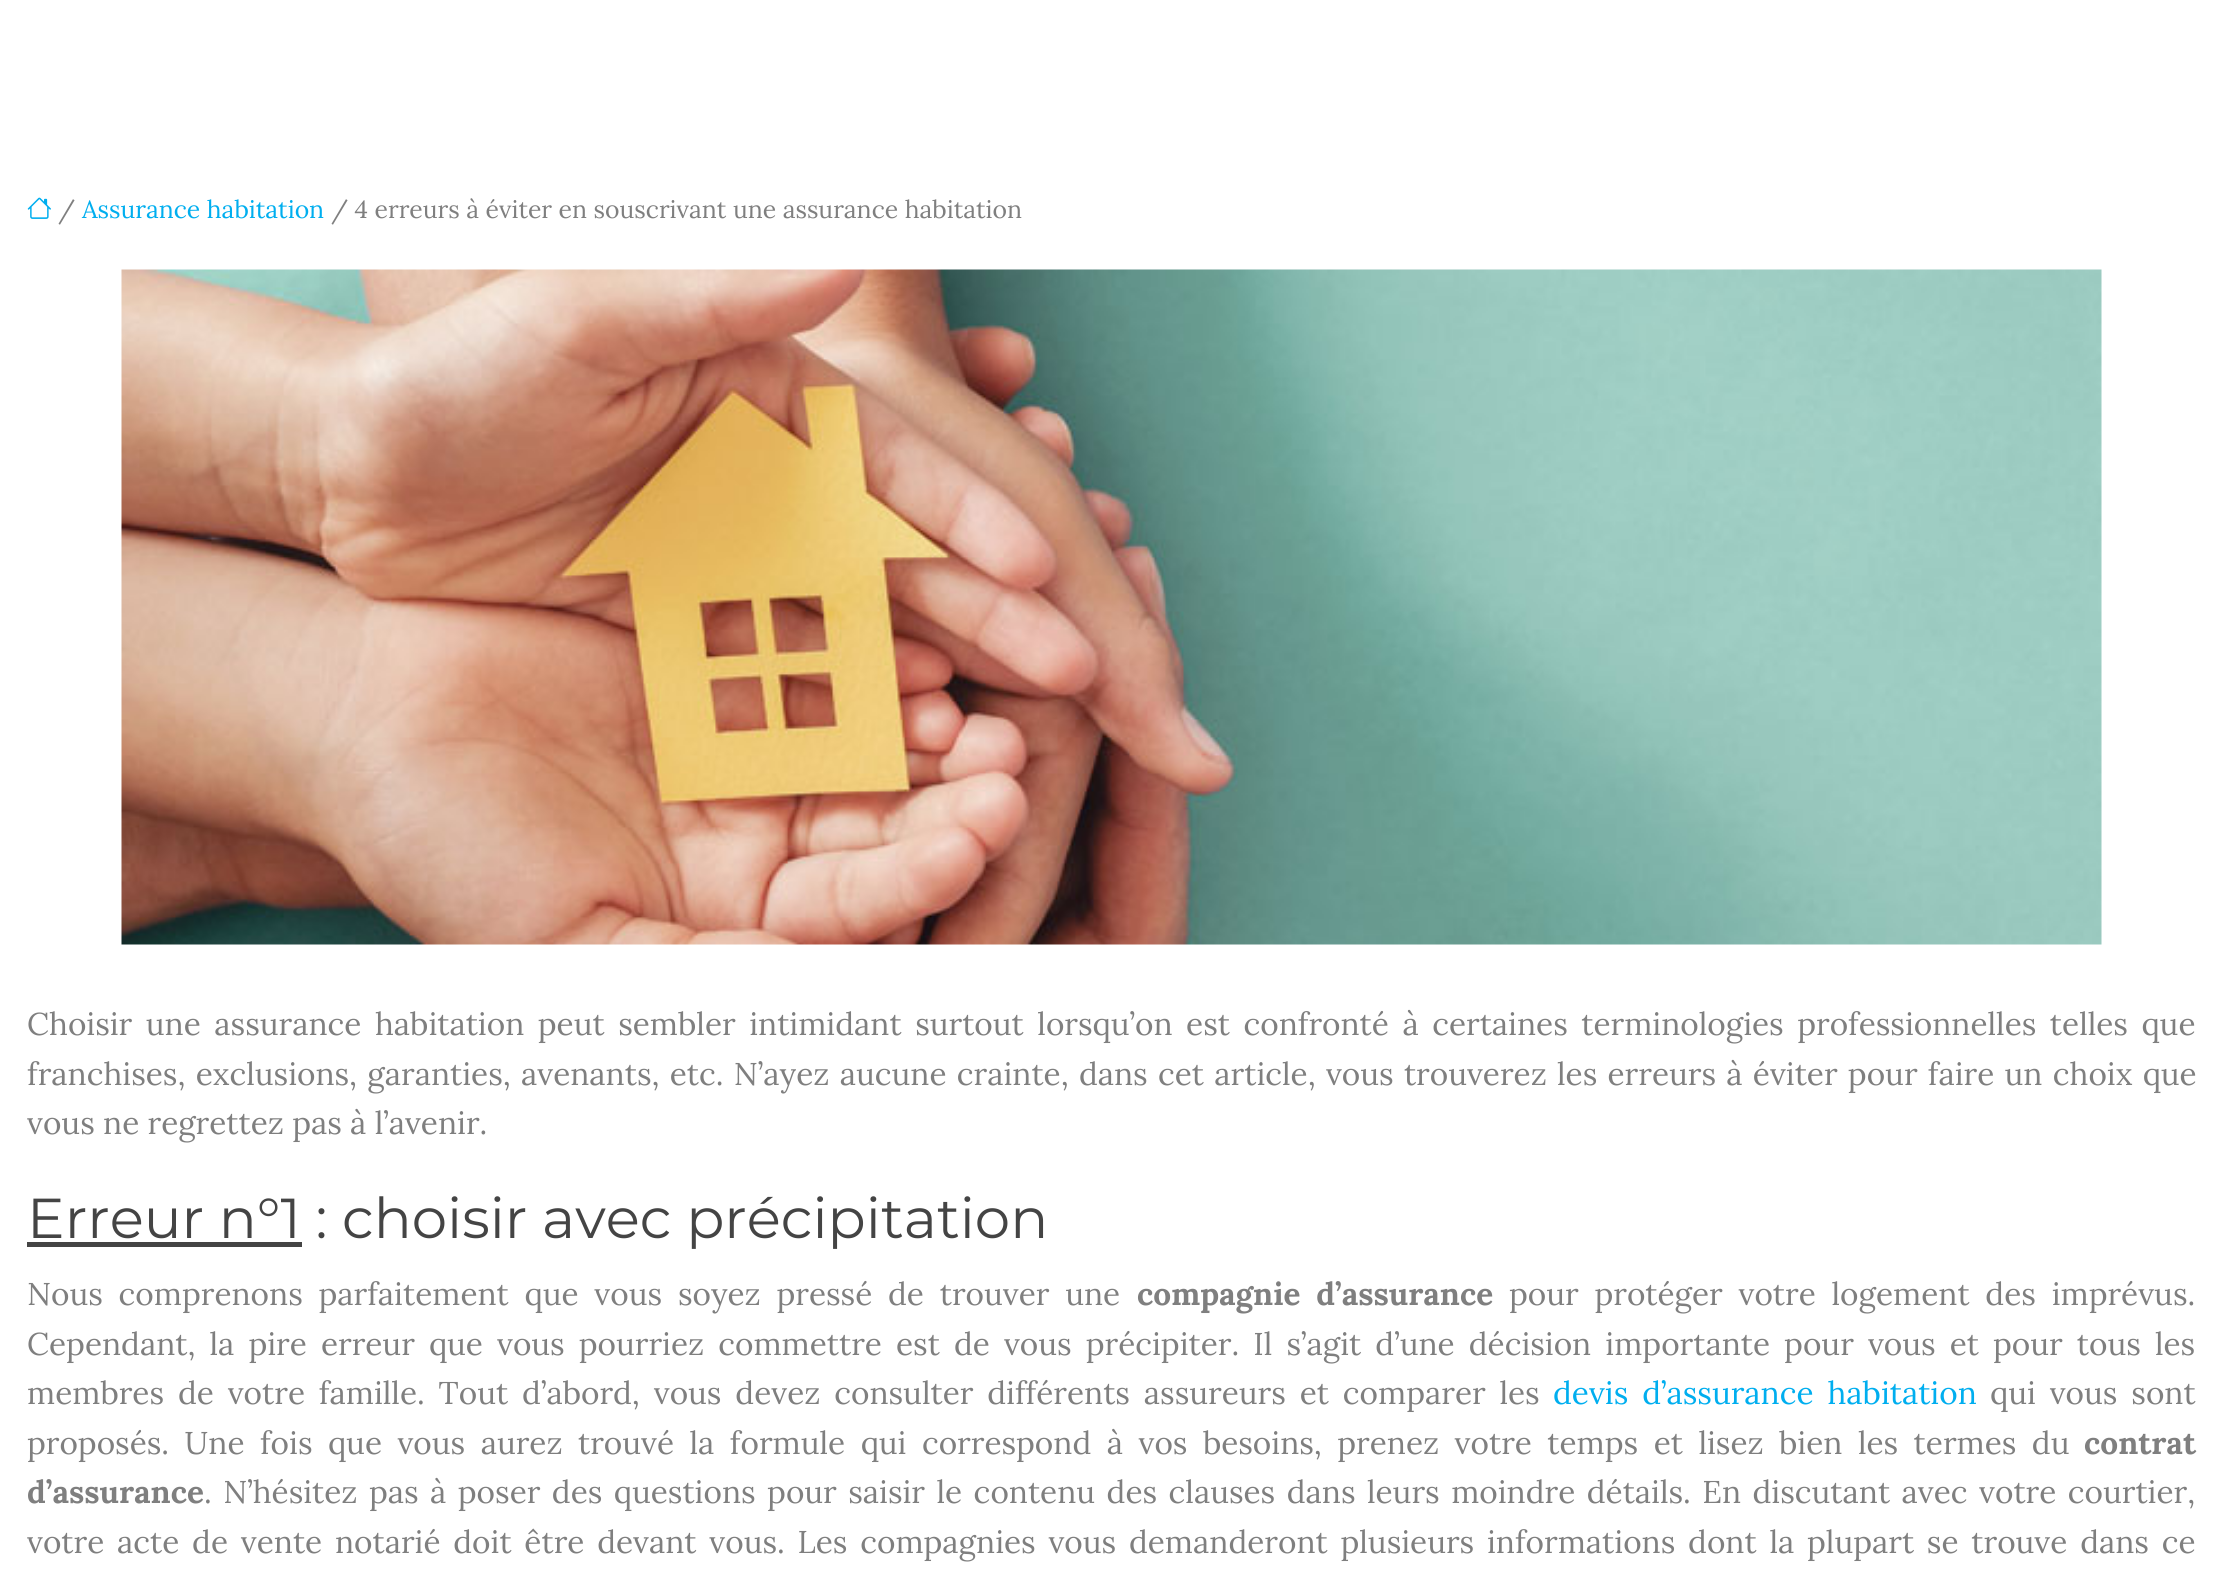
import math
import cairo


def write_spaced(ctx, x, y, s, letter, word):
	ctx.move_to(x, y)
	for ch in s:
		ctx.show_text(ch)
		ctx.rel_move_to(letter + word * (ch == ' '), 0)

def paste(ctx, path, x, y, w, h):
	ctx.save()
	ctx.set_source_surface(cairo.ImageSurface.create_from_png(path), x, y)
	ctx.rectangle(x, y, w, h)
	ctx.fill()
	ctx.restore()

def draw(ctx):
	ctx.set_source_rgb(1, 1, 1)
	ctx.paint()
	paste(ctx, 'media/1.png', 27, 197, 24, 22)
	ctx.select_font_face('Lora')
	ctx.set_font_size(24.75)
	ctx.set_source_rgb(0.498, 0.498, 0.498)
	ctx.move_to(58, 218)
	ctx.show_text('/')
	ctx.set_source_rgb(0, 0.682, 0.937)
	ctx.move_to(82, 218)
	ctx.show_text('Assurance habitation')
	ctx.set_source_rgb(0.498, 0.498, 0.498)
	ctx.move_to(331, 218)
	ctx.show_text('/ 4 erreurs à éviter en souscrivant une assurance habitation')
	paste(ctx, 'media/2.png', 121, 269, 1981, 676)
	ctx.set_font_size(31.5)
	write_spaced(ctx, 27, 1035, 'Choisir une assurance habitation peut sembler intimidant surtout lorsqu’on est confronté à certaines terminologies professionnelles telles que', 0, 5.25)
	write_spaced(ctx, 27, 1085, 'franchises, exclusions, garanties, avenants, etc. N’ayez aucune crainte, dans cet article, vous trouverez les erreurs à éviter pour faire un choix que', 0, 2)
	ctx.move_to(27, 1134)
	ctx.show_text('vous ne regrettez pas à l’avenir.')
	ctx.set_source_rgb(0.267, 0.267, 0.267)
	ctx.rectangle(27, 1242, 275, 5)
	ctx.fill()
	ctx.select_font_face('Montserrat')
	ctx.set_font_size(56.25)
	ctx.move_to(27, 1238)
	ctx.show_text('Erreur n°1 : choisir avec précipitation')
	ctx.select_font_face('Lora')
	ctx.set_font_size(31.5)
	ctx.set_source_rgb(0.498, 0.498, 0.498)
	write_spaced(ctx, 27, 1305, 'Nous comprenons parfaitement que vous soyez pressé de trouver une', 0, 7.5)
	ctx.select_font_face('Lora', cairo.FONT_SLANT_NORMAL, cairo.FONT_WEIGHT_BOLD)
	write_spaced(ctx, 1137, 1305, 'compagnie d’assurance', 0, 7.5)
	ctx.select_font_face('Lora')
	write_spaced(ctx, 1509, 1305, 'pour protéger votre logement des imprévus.', 0, 7.5)
	write_spaced(ctx, 27, 1355, 'Cependant, la pire erreur que vous pourriez commettre est de vous précipiter. Il s’agit d’une décision importante pour vous et pour tous les', 0, 5.8)
	write_spaced(ctx, 27, 1404, 'membres de votre famille. Tout d’abord, vous devez consulter différents assureurs et comparer les', 0, 5.6)
	ctx.set_source_rgb(0, 0.682, 0.937)
	write_spaced(ctx, 1553, 1404, 'devis d’assurance habitation', 0, 5.6)
	ctx.set_source_rgb(0.498, 0.498, 0.498)
	write_spaced(ctx, 1990, 1404, 'qui vous sont', 0, 5.6)
	write_spaced(ctx, 27, 1454, 'proposés. Une fois que vous aurez trouvé la formule qui correspond à vos besoins, prenez votre temps et lisez bien les termes du', 0, 7.2)
	ctx.select_font_face('Lora', cairo.FONT_SLANT_NORMAL, cairo.FONT_WEIGHT_BOLD)
	ctx.move_to(2084, 1454)
	ctx.show_text('contrat')
	ctx.move_to(27, 1503)
	ctx.show_text('d’assurance')
	ctx.select_font_face('Lora')
	write_spaced(ctx, 204, 1503, '. N’hésitez pas à poser des questions pour saisir le contenu des clauses dans leurs moindre détails. En discutant avec votre courtier,', 0, 3.2)
	write_spaced(ctx, 27, 1553, 'votre acte de vente notarié doit être devant vous. Les compagnies vous demanderont plusieurs informations dont la plupart se trouve dans ce', 0, 4.5)


surface = cairo.ImageSurface(cairo.FORMAT_RGB24, 2223, 1591)
ctx = cairo.Context(surface)
options = cairo.FontOptions()
options.set_hint_metrics(cairo.HINT_METRICS_OFF)
options.set_hint_style(cairo.HINT_STYLE_NONE)
ctx.set_font_options(options)
ctx.set_miter_limit(4)
draw(ctx)
surface.write_to_png('image.png')
